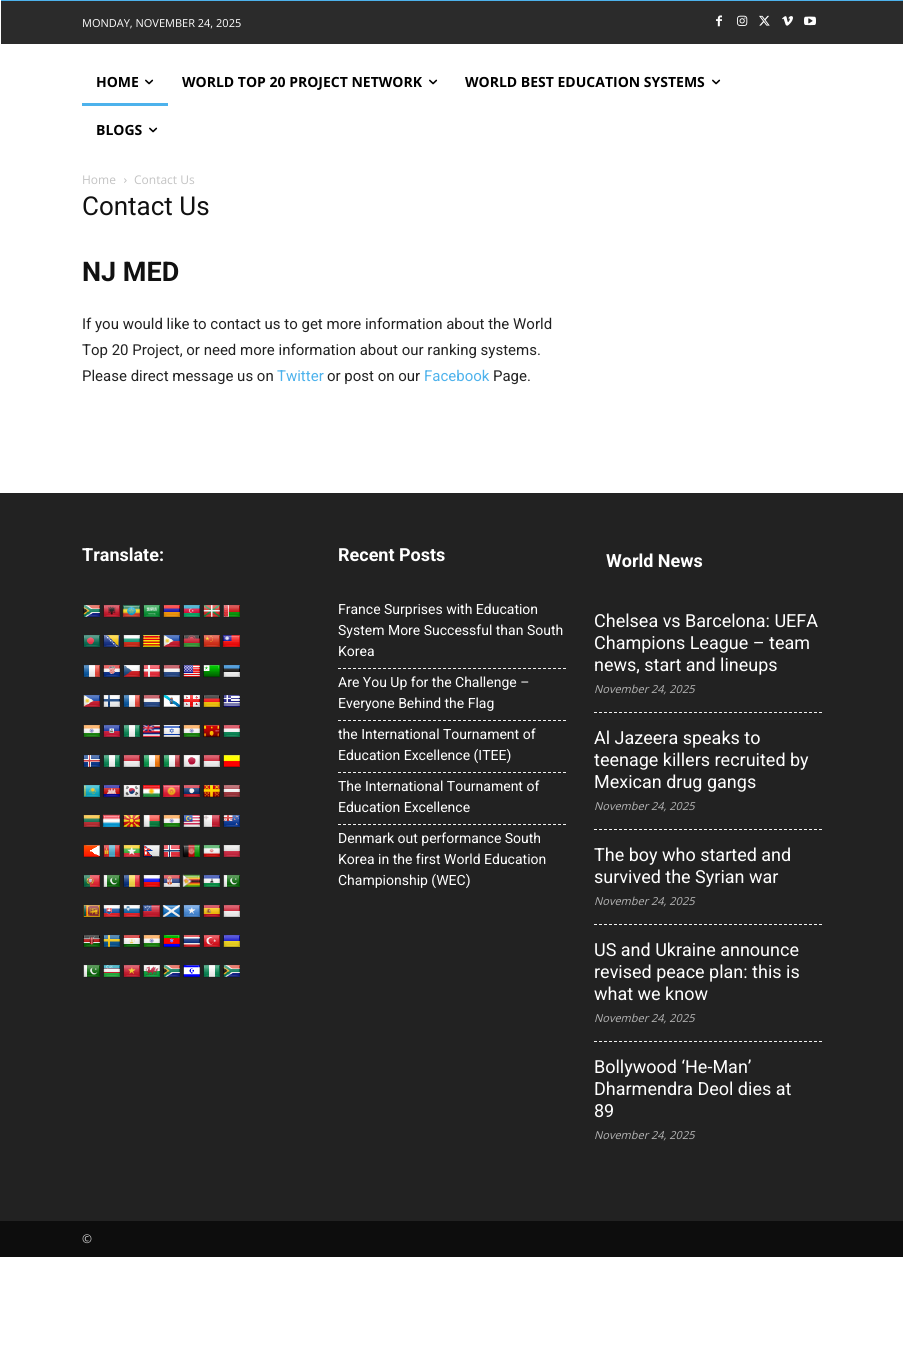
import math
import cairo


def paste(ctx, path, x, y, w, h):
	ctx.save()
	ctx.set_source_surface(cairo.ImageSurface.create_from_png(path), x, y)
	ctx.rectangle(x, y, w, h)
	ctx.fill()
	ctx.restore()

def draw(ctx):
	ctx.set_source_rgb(1, 1, 1)
	ctx.paint()
	ctx.set_source_rgb(0.302, 0.698, 0.925)
	ctx.rectangle(1, 0, 902, 1)
	ctx.fill()
	ctx.set_source_rgb(0.169, 0.169, 0.169)
	ctx.rectangle(1, 1, 902, 43)
	ctx.fill()
	ctx.select_font_face('Open Sans')
	ctx.set_font_size(11)
	ctx.set_source_rgb(1, 1, 1)
	ctx.move_to(82, 27)
	ctx.show_text('MONDAY, NOVEMBER 24, 2025')
	paste(ctx, 'media/1.png', 716, 15, 6, 12)
	paste(ctx, 'media/2.png', 737, 15, 11, 11)
	paste(ctx, 'media/3.png', 759, 15, 11, 11)
	paste(ctx, 'media/4.png', 782, 16, 11, 10)
	paste(ctx, 'media/5.png', 804, 16, 12, 10)
	ctx.select_font_face('Open Sans', cairo.FONT_SLANT_NORMAL, cairo.FONT_WEIGHT_BOLD)
	ctx.set_font_size(14)
	ctx.set_source_rgb(0, 0, 0)
	ctx.move_to(96, 87)
	ctx.show_text('HOME')
	paste(ctx, 'media/6.png', 145, 79, 9, 6)
	ctx.set_source_rgb(0.302, 0.698, 0.925)
	ctx.rectangle(82, 103, 86, 3)
	ctx.fill()
	ctx.set_source_rgb(0, 0, 0)
	ctx.move_to(182, 87)
	ctx.show_text('WORLD TOP 20 PROJECT NETWORK')
	paste(ctx, 'media/6.png', 429, 79, 9, 6)
	ctx.move_to(465, 87)
	ctx.show_text('WORLD BEST EDUCATION SYSTEMS')
	paste(ctx, 'media/6.png', 712, 79, 9, 6)
	ctx.move_to(96, 135)
	ctx.show_text('BLOGS')
	paste(ctx, 'media/6.png', 149, 127, 9, 6)
	ctx.select_font_face('Open Sans')
	ctx.set_font_size(12)
	ctx.set_source_rgb(0.765, 0.765, 0.765)
	ctx.move_to(82, 184)
	ctx.show_text('Home')
	paste(ctx, 'media/7.png', 124, 178, 3, 5)
	ctx.move_to(134, 184)
	ctx.show_text('Contact Us')
	ctx.select_font_face('Roboto')
	ctx.set_font_size(26)
	ctx.set_source_rgb(0.067, 0.067, 0.067)
	ctx.move_to(82, 215)
	ctx.show_text('Contact Us')
	ctx.select_font_face('Roboto', cairo.FONT_SLANT_NORMAL, cairo.FONT_WEIGHT_BOLD)
	ctx.set_font_size(27)
	ctx.move_to(82, 281)
	ctx.show_text('NJ MED')
	ctx.select_font_face('Roboto')
	ctx.set_font_size(15)
	ctx.set_source_rgb(0.133, 0.133, 0.133)
	for x, y, s in [
		(82, 329, 'If you would like to contact us to get more information about the World'),
		(82, 355, 'Top 20 Project, or need more information about our ranking systems.'),
		(82, 381, 'Please direct message us on'),
	]:
		ctx.move_to(x, y)
		ctx.show_text(s)
	ctx.set_source_rgb(0.302, 0.698, 0.925)
	ctx.move_to(277, 381)
	ctx.show_text('Twitter')
	ctx.set_source_rgb(0.133, 0.133, 0.133)
	ctx.move_to(327, 381)
	ctx.show_text('or post on our')
	ctx.set_source_rgb(0.302, 0.698, 0.925)
	ctx.move_to(424, 381)
	ctx.show_text('Facebook')
	ctx.set_source_rgb(0.133, 0.133, 0.133)
	ctx.move_to(493, 381)
	ctx.show_text('Page.')
	ctx.rectangle(0, 493, 903, 728)
	ctx.fill()
	ctx.select_font_face('Roboto', cairo.FONT_SLANT_NORMAL, cairo.FONT_WEIGHT_BOLD)
	ctx.set_font_size(18)
	ctx.set_source_rgb(1, 1, 1)
	ctx.move_to(82, 561)
	ctx.show_text('Translate:')
	paste(ctx, 'media/8.png', 83, 605, 17, 13)
	paste(ctx, 'media/9.png', 103, 605, 17, 13)
	paste(ctx, 'media/10.png', 122, 604, 18, 14)
	paste(ctx, 'media/11.png', 143, 605, 17, 13)
	paste(ctx, 'media/12.png', 163, 605, 17, 13)
	paste(ctx, 'media/13.png', 183, 605, 17, 13)
	paste(ctx, 'media/14.png', 203, 605, 17, 13)
	paste(ctx, 'media/15.png', 223, 605, 17, 13)
	paste(ctx, 'media/16.png', 83, 635, 17, 13)
	paste(ctx, 'media/17.png', 103, 635, 17, 13)
	paste(ctx, 'media/18.png', 123, 635, 17, 13)
	paste(ctx, 'media/19.png', 143, 635, 17, 13)
	paste(ctx, 'media/20.png', 163, 635, 17, 13)
	paste(ctx, 'media/21.png', 183, 635, 17, 13)
	paste(ctx, 'media/22.png', 203, 635, 17, 13)
	paste(ctx, 'media/23.png', 222, 635, 18, 13)
	paste(ctx, 'media/24.png', 83, 665, 17, 13)
	paste(ctx, 'media/25.png', 103, 665, 17, 13)
	paste(ctx, 'media/26.png', 123, 665, 17, 13)
	paste(ctx, 'media/27.png', 143, 665, 17, 13)
	paste(ctx, 'media/28.png', 163, 665, 17, 13)
	paste(ctx, 'media/29.png', 183, 665, 17, 13)
	paste(ctx, 'media/30.png', 203, 665, 17, 13)
	paste(ctx, 'media/31.png', 223, 665, 17, 13)
	paste(ctx, 'media/20.png', 83, 695, 17, 13)
	paste(ctx, 'media/32.png', 103, 695, 17, 13)
	paste(ctx, 'media/24.png', 123, 695, 17, 13)
	paste(ctx, 'media/28.png', 143, 695, 17, 13)
	paste(ctx, 'media/33.png', 163, 695, 17, 13)
	paste(ctx, 'media/34.png', 183, 695, 17, 13)
	paste(ctx, 'media/35.png', 203, 695, 17, 13)
	paste(ctx, 'media/36.png', 223, 695, 17, 13)
	paste(ctx, 'media/37.png', 83, 725, 17, 13)
	paste(ctx, 'media/38.png', 103, 725, 17, 13)
	paste(ctx, 'media/39.png', 123, 725, 17, 13)
	paste(ctx, 'media/40.png', 143, 725, 17, 13)
	paste(ctx, 'media/41.png', 163, 725, 17, 13)
	paste(ctx, 'media/37.png', 183, 725, 17, 13)
	paste(ctx, 'media/42.png', 203, 725, 17, 13)
	paste(ctx, 'media/43.png', 223, 725, 17, 13)
	paste(ctx, 'media/44.png', 83, 755, 17, 13)
	paste(ctx, 'media/39.png', 103, 755, 17, 13)
	paste(ctx, 'media/45.png', 123, 755, 17, 13)
	paste(ctx, 'media/46.png', 143, 755, 17, 13)
	paste(ctx, 'media/47.png', 163, 755, 17, 13)
	paste(ctx, 'media/48.png', 183, 755, 17, 13)
	paste(ctx, 'media/45.png', 203, 755, 17, 13)
	paste(ctx, 'media/49.png', 223, 755, 17, 13)
	paste(ctx, 'media/50.png', 83, 785, 17, 13)
	paste(ctx, 'media/51.png', 103, 785, 17, 13)
	paste(ctx, 'media/52.png', 123, 785, 17, 13)
	paste(ctx, 'media/53.png', 143, 785, 17, 13)
	paste(ctx, 'media/54.png', 163, 785, 17, 13)
	paste(ctx, 'media/55.png', 183, 785, 17, 13)
	paste(ctx, 'media/56.png', 203, 785, 17, 13)
	paste(ctx, 'media/57.png', 223, 785, 17, 13)
	paste(ctx, 'media/58.png', 83, 815, 17, 13)
	paste(ctx, 'media/59.png', 102, 814, 18, 14)
	paste(ctx, 'media/60.png', 123, 815, 17, 13)
	paste(ctx, 'media/61.png', 143, 815, 17, 13)
	paste(ctx, 'media/37.png', 163, 815, 17, 13)
	paste(ctx, 'media/62.png', 183, 815, 17, 13)
	paste(ctx, 'media/63.png', 203, 815, 17, 13)
	paste(ctx, 'media/64.png', 223, 815, 17, 13)
	paste(ctx, 'media/65.png', 83, 845, 17, 13)
	paste(ctx, 'media/66.png', 103, 845, 17, 13)
	paste(ctx, 'media/67.png', 123, 845, 17, 13)
	paste(ctx, 'media/68.png', 143, 845, 17, 13)
	paste(ctx, 'media/69.png', 163, 845, 17, 13)
	paste(ctx, 'media/70.png', 182, 844, 18, 14)
	paste(ctx, 'media/71.png', 203, 845, 17, 13)
	paste(ctx, 'media/72.png', 223, 845, 17, 13)
	paste(ctx, 'media/73.png', 83, 875, 17, 13)
	paste(ctx, 'media/74.png', 103, 875, 17, 13)
	paste(ctx, 'media/75.png', 123, 875, 17, 13)
	paste(ctx, 'media/76.png', 143, 875, 17, 13)
	paste(ctx, 'media/77.png', 163, 875, 17, 13)
	paste(ctx, 'media/78.png', 182, 874, 18, 14)
	paste(ctx, 'media/79.png', 203, 875, 17, 13)
	paste(ctx, 'media/74.png', 223, 875, 17, 13)
	paste(ctx, 'media/80.png', 83, 905, 17, 13)
	paste(ctx, 'media/81.png', 103, 905, 17, 13)
	paste(ctx, 'media/82.png', 123, 905, 17, 13)
	paste(ctx, 'media/83.png', 142, 905, 18, 13)
	paste(ctx, 'media/84.png', 162, 905, 18, 13)
	paste(ctx, 'media/85.png', 183, 905, 17, 13)
	paste(ctx, 'media/86.png', 203, 905, 17, 13)
	paste(ctx, 'media/45.png', 223, 905, 17, 13)
	paste(ctx, 'media/87.png', 83, 935, 17, 13)
	paste(ctx, 'media/88.png', 103, 935, 17, 13)
	paste(ctx, 'media/89.png', 123, 935, 17, 13)
	paste(ctx, 'media/37.png', 143, 935, 17, 13)
	paste(ctx, 'media/90.png', 163, 935, 17, 13)
	paste(ctx, 'media/91.png', 183, 935, 17, 13)
	paste(ctx, 'media/92.png', 203, 935, 17, 13)
	paste(ctx, 'media/93.png', 223, 935, 17, 13)
	paste(ctx, 'media/74.png', 83, 965, 17, 13)
	paste(ctx, 'media/94.png', 103, 965, 17, 13)
	paste(ctx, 'media/95.png', 123, 965, 17, 13)
	paste(ctx, 'media/96.png', 143, 965, 17, 13)
	paste(ctx, 'media/8.png', 163, 965, 17, 13)
	paste(ctx, 'media/97.png', 183, 965, 17, 13)
	paste(ctx, 'media/39.png', 203, 965, 17, 13)
	paste(ctx, 'media/8.png', 223, 965, 17, 13)
	ctx.move_to(338, 561)
	ctx.show_text('Recent Posts')
	ctx.new_path()
	ctx.move_to(338, 668.5)
	ctx.line_to(566, 668.5)
	ctx.set_source_rgb(0.945, 0.945, 0.945)
	ctx.set_line_width(1)
	ctx.set_dash([3, 2])
	ctx.stroke()
	ctx.select_font_face('Roboto')
	ctx.set_font_size(14)
	ctx.set_source_rgb(1, 1, 1)
	for x, y, s in [
		(338, 614, 'France Surprises with Education'),
		(338, 635, 'System More Successful than South'),
		(338, 656, 'Korea'),
	]:
		ctx.move_to(x, y)
		ctx.show_text(s)
	ctx.new_path()
	ctx.move_to(338, 720.5)
	ctx.line_to(566, 720.5)
	ctx.set_source_rgb(0.945, 0.945, 0.945)
	ctx.stroke()
	ctx.set_source_rgb(1, 1, 1)
	ctx.move_to(338, 687)
	ctx.show_text('Are You Up for the Challenge –')
	ctx.move_to(338, 708)
	ctx.show_text('Everyone Behind the Flag')
	ctx.new_path()
	ctx.move_to(338, 772.5)
	ctx.line_to(566, 772.5)
	ctx.set_source_rgb(0.945, 0.945, 0.945)
	ctx.stroke()
	ctx.set_source_rgb(1, 1, 1)
	ctx.move_to(338, 739)
	ctx.show_text('the International Tournament of')
	ctx.move_to(338, 760)
	ctx.show_text('Education Excellence (ITEE)')
	ctx.new_path()
	ctx.move_to(338, 824.5)
	ctx.line_to(566, 824.5)
	ctx.set_source_rgb(0.945, 0.945, 0.945)
	ctx.stroke()
	ctx.set_source_rgb(1, 1, 1)
	for x, y, s in [
		(338, 791, 'The International Tournament of'),
		(338, 812, 'Education Excellence'),
		(338, 843, 'Denmark out performance South'),
		(338, 864, 'Korea in the first World Education'),
		(338, 885, 'Championship (WEC)'),
	]:
		ctx.move_to(x, y)
		ctx.show_text(s)
	ctx.select_font_face('Roboto', cairo.FONT_SLANT_NORMAL, cairo.FONT_WEIGHT_BOLD)
	ctx.set_font_size(18)
	ctx.move_to(606, 567)
	ctx.show_text('World News')
	ctx.new_path()
	ctx.move_to(594, 712.5)
	ctx.line_to(822, 712.5)
	ctx.set_source_rgb(0.945, 0.945, 0.945)
	ctx.stroke()
	ctx.select_font_face('Roboto')
	ctx.set_source_rgb(1, 1, 1)
	for x, y, s in [
		(594, 627, 'Chelsea vs Barcelona: UEFA'),
		(594, 649, 'Champions League – team'),
		(594, 671, 'news, start and lineups'),
	]:
		ctx.move_to(x, y)
		ctx.show_text(s)
	ctx.select_font_face('Open Sans', cairo.FONT_SLANT_ITALIC)
	ctx.set_font_size(11)
	ctx.set_source_rgb(0.71, 0.71, 0.71)
	ctx.move_to(594, 693)
	ctx.show_text('November 24, 2025')
	ctx.new_path()
	ctx.move_to(594, 829.5)
	ctx.line_to(822, 829.5)
	ctx.set_source_rgb(0.945, 0.945, 0.945)
	ctx.stroke()
	ctx.select_font_face('Roboto')
	ctx.set_font_size(18)
	ctx.set_source_rgb(1, 1, 1)
	for x, y, s in [
		(594, 744, 'Al Jazeera speaks to'),
		(594, 766, 'teenage killers recruited by'),
		(594, 788, 'Mexican drug gangs'),
	]:
		ctx.move_to(x, y)
		ctx.show_text(s)
	ctx.select_font_face('Open Sans', cairo.FONT_SLANT_ITALIC)
	ctx.set_font_size(11)
	ctx.set_source_rgb(0.71, 0.71, 0.71)
	ctx.move_to(594, 810)
	ctx.show_text('November 24, 2025')
	ctx.new_path()
	ctx.move_to(594, 924.5)
	ctx.line_to(822, 924.5)
	ctx.set_source_rgb(0.945, 0.945, 0.945)
	ctx.stroke()
	ctx.select_font_face('Roboto')
	ctx.set_font_size(18)
	ctx.set_source_rgb(1, 1, 1)
	ctx.move_to(594, 861)
	ctx.show_text('The boy who started and')
	ctx.move_to(594, 883)
	ctx.show_text('survived the Syrian war')
	ctx.select_font_face('Open Sans', cairo.FONT_SLANT_ITALIC)
	ctx.set_font_size(11)
	ctx.set_source_rgb(0.71, 0.71, 0.71)
	ctx.move_to(594, 905)
	ctx.show_text('November 24, 2025')
	ctx.new_path()
	ctx.move_to(594, 1041.5)
	ctx.line_to(822, 1041.5)
	ctx.set_source_rgb(0.945, 0.945, 0.945)
	ctx.stroke()
	ctx.select_font_face('Roboto')
	ctx.set_font_size(18)
	ctx.set_source_rgb(1, 1, 1)
	for x, y, s in [
		(594, 956, 'US and Ukraine announce'),
		(594, 978, 'revised peace plan: this is'),
		(594, 1000, 'what we know'),
	]:
		ctx.move_to(x, y)
		ctx.show_text(s)
	ctx.select_font_face('Open Sans', cairo.FONT_SLANT_ITALIC)
	ctx.set_font_size(11)
	ctx.set_source_rgb(0.71, 0.71, 0.71)
	ctx.move_to(594, 1022)
	ctx.show_text('November 24, 2025')
	ctx.select_font_face('Roboto')
	ctx.set_font_size(18)
	ctx.set_source_rgb(1, 1, 1)
	for x, y, s in [
		(594, 1073, 'Bollywood ‘He-Man’'),
		(594, 1095, 'Dharmendra Deol dies at'),
		(594, 1117, '89'),
	]:
		ctx.move_to(x, y)
		ctx.show_text(s)
	ctx.select_font_face('Open Sans', cairo.FONT_SLANT_ITALIC)
	ctx.set_font_size(11)
	ctx.set_source_rgb(0.71, 0.71, 0.71)
	ctx.move_to(594, 1139)
	ctx.show_text('November 24, 2025')
	ctx.set_source_rgb(0.051, 0.051, 0.051)
	ctx.rectangle(0, 1221, 903, 36)
	ctx.fill()
	ctx.select_font_face('Open Sans')
	ctx.set_font_size(12)
	ctx.set_source_rgb(0.8, 0.8, 0.8)
	ctx.move_to(82, 1243)
	ctx.show_text('©')


surface = cairo.ImageSurface(cairo.FORMAT_RGB24, 903, 1371)
ctx = cairo.Context(surface)
options = cairo.FontOptions()
options.set_hint_metrics(cairo.HINT_METRICS_OFF)
options.set_hint_style(cairo.HINT_STYLE_NONE)
ctx.set_font_options(options)
ctx.set_miter_limit(4)
draw(ctx)
surface.write_to_png('image.png')
